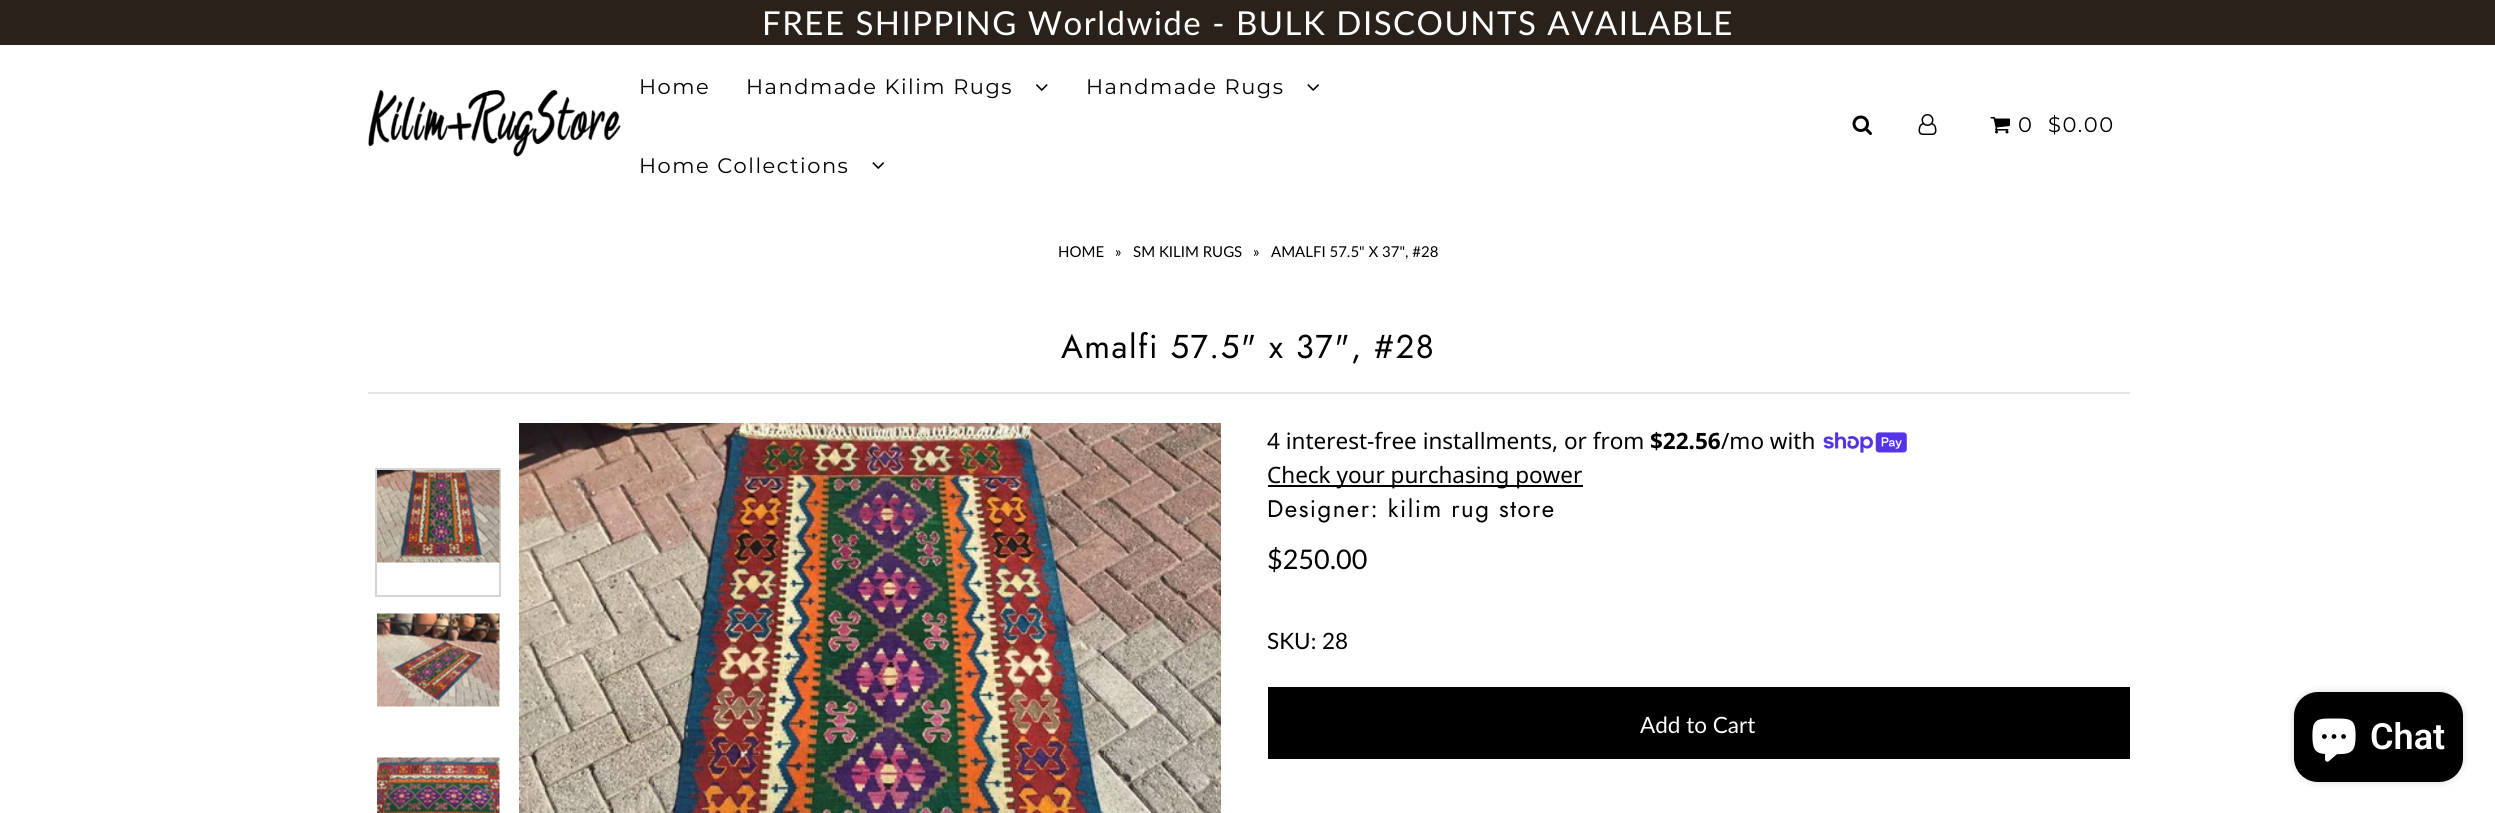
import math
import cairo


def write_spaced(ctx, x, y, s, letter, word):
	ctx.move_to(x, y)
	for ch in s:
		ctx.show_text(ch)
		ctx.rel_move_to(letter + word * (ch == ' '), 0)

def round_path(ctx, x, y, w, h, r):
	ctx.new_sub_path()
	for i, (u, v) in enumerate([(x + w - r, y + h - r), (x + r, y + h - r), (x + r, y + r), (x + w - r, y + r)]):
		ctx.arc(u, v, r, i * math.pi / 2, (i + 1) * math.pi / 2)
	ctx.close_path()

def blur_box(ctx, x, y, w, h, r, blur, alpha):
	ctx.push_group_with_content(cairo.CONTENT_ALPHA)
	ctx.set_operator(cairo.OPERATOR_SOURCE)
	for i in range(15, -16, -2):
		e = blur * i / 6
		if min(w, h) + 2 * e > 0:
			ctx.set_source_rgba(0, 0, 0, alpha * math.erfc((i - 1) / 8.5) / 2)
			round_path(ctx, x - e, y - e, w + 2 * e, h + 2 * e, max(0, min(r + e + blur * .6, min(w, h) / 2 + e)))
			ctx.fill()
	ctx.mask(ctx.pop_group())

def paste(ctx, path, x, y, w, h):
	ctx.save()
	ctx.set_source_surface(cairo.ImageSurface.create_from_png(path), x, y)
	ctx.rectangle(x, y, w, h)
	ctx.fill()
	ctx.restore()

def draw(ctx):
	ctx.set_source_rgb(1, 1, 1)
	ctx.paint()
	ctx.set_source_rgb(0.161, 0.129, 0.102)
	ctx.rectangle(0, 0, 2495, 45)
	ctx.fill()
	ctx.select_font_face('Lato')
	ctx.set_font_size(33)
	ctx.set_source_rgb(1, 1, 1)
	write_spaced(ctx, 762, 35, 'FREE SHIPPING Worldwide - BULK DISCOUNTS AVAILABLE', 1.5, 0)
	paste(ctx, 'media/1.png', 368, 90, 253, 67)
	ctx.select_font_face('Montserrat')
	ctx.set_font_size(21)
	ctx.set_source_rgb(0, 0, 0)
	write_spaced(ctx, 639, 94, 'Home', 1.5, 0)
	write_spaced(ctx, 746, 94, 'Handmade Kilim Rugs', 1.5, 0)
	paste(ctx, 'media/2.png', 1036, 84, 12, 7)
	write_spaced(ctx, 1086, 94, 'Handmade Rugs', 1.5, 0)
	paste(ctx, 'media/3.png', 1307, 84, 12, 7)
	write_spaced(ctx, 639, 173, 'Home Collections', 1.5, 0)
	paste(ctx, 'media/3.png', 872, 162, 12, 7)
	paste(ctx, 'media/4.png', 1852, 115, 20, 20)
	paste(ctx, 'media/5.png', 1918, 114, 19, 21)
	paste(ctx, 'media/6.png', 1990, 117, 20, 17)
	write_spaced(ctx, 2018, 132, '0', 1.5, 0)
	write_spaced(ctx, 2048, 132, '$0.00', 1.5, 0)
	ctx.select_font_face('Lato')
	ctx.set_font_size(15)
	for x, y, s in [
		(1058, 257, 'HOME'),
		(1115, 257, '»'),
		(1133, 257, 'SM KILIM RUGS'),
		(1253, 257, '»'),
		(1271, 257, 'AMALFI 57.5" X 37", #28'),
	]:
		ctx.move_to(x, y)
		ctx.show_text(s)
	ctx.set_source_rgb(0.898, 0.898, 0.898)
	ctx.rectangle(368, 392, 1762, 2)
	ctx.fill()
	ctx.select_font_face('Jost')
	ctx.set_font_size(33)
	ctx.set_source_rgb(0, 0, 0)
	write_spaced(ctx, 1061, 358, 'Amalfi 57.5" x 37", #28', 1.5, 0)
	ctx.rectangle(376, 469, 124, 127)
	ctx.set_source_rgb(0.835, 0.835, 0.835)
	ctx.stroke()
	paste(ctx, 'media/7.png', 377, 470, 123, 93)
	paste(ctx, 'media/8.png', 377, 613, 123, 94)
	paste(ctx, 'media/9.png', 377, 757, 123, 56)
	paste(ctx, 'media/10.png', 519, 423, 702, 390)
	ctx.select_font_face('Noto Sans')
	ctx.set_font_size(22.5)
	ctx.set_source_rgb(0, 0, 0)
	ctx.move_to(1267, 449)
	ctx.show_text('4 interest-free installments, or from')
	ctx.select_font_face('Noto Sans', cairo.FONT_SLANT_NORMAL, cairo.FONT_WEIGHT_BOLD)
	ctx.move_to(1650, 449)
	ctx.show_text('$22.56')
	ctx.select_font_face('Noto Sans')
	ctx.move_to(1721, 449)
	ctx.show_text('/mo with')
	paste(ctx, 'media/11.png', 1823, 432, 84, 21)
	ctx.rectangle(1268, 485, 315, 2)
	ctx.fill()
	ctx.move_to(1267, 483)
	ctx.show_text('Check your purchasing power')
	ctx.select_font_face('Jost')
	ctx.set_font_size(24)
	write_spaced(ctx, 1267, 517, 'Designer: kilim rug store', 1.5, 0)
	ctx.select_font_face('Lato')
	ctx.set_font_size(27)
	ctx.move_to(1267, 569)
	ctx.show_text('$250.00')
	ctx.set_font_size(22.5)
	ctx.move_to(1267, 649)
	ctx.show_text('SKU: 28')
	ctx.rectangle(1268, 687, 862, 72)
	ctx.fill()
	ctx.set_source_rgb(1, 1, 1)
	ctx.move_to(1640, 733)
	ctx.show_text('Add to Cart')
	ctx.set_source_rgb(0, 0, 0)
	blur_box(ctx, 2294, 692, 169, 90, 24, 4, 0.15)
	ctx.set_source_rgb(0, 0, 0)
	round_path(ctx, 2294, 692, 169, 90, 24)
	ctx.fill()
	paste(ctx, 'media/12.png', 2312, 718, 44, 44)
	ctx.select_font_face('Roboto SemiBold')
	ctx.set_font_size(36)
	ctx.set_source_rgb(1, 1, 1)
	ctx.move_to(2370, 749)
	ctx.show_text('Chat')


surface = cairo.ImageSurface(cairo.FORMAT_RGB24, 2495, 813)
ctx = cairo.Context(surface)
options = cairo.FontOptions()
options.set_hint_metrics(cairo.HINT_METRICS_OFF)
options.set_hint_style(cairo.HINT_STYLE_NONE)
ctx.set_font_options(options)
ctx.set_miter_limit(4)
draw(ctx)
surface.write_to_png('image.png')
